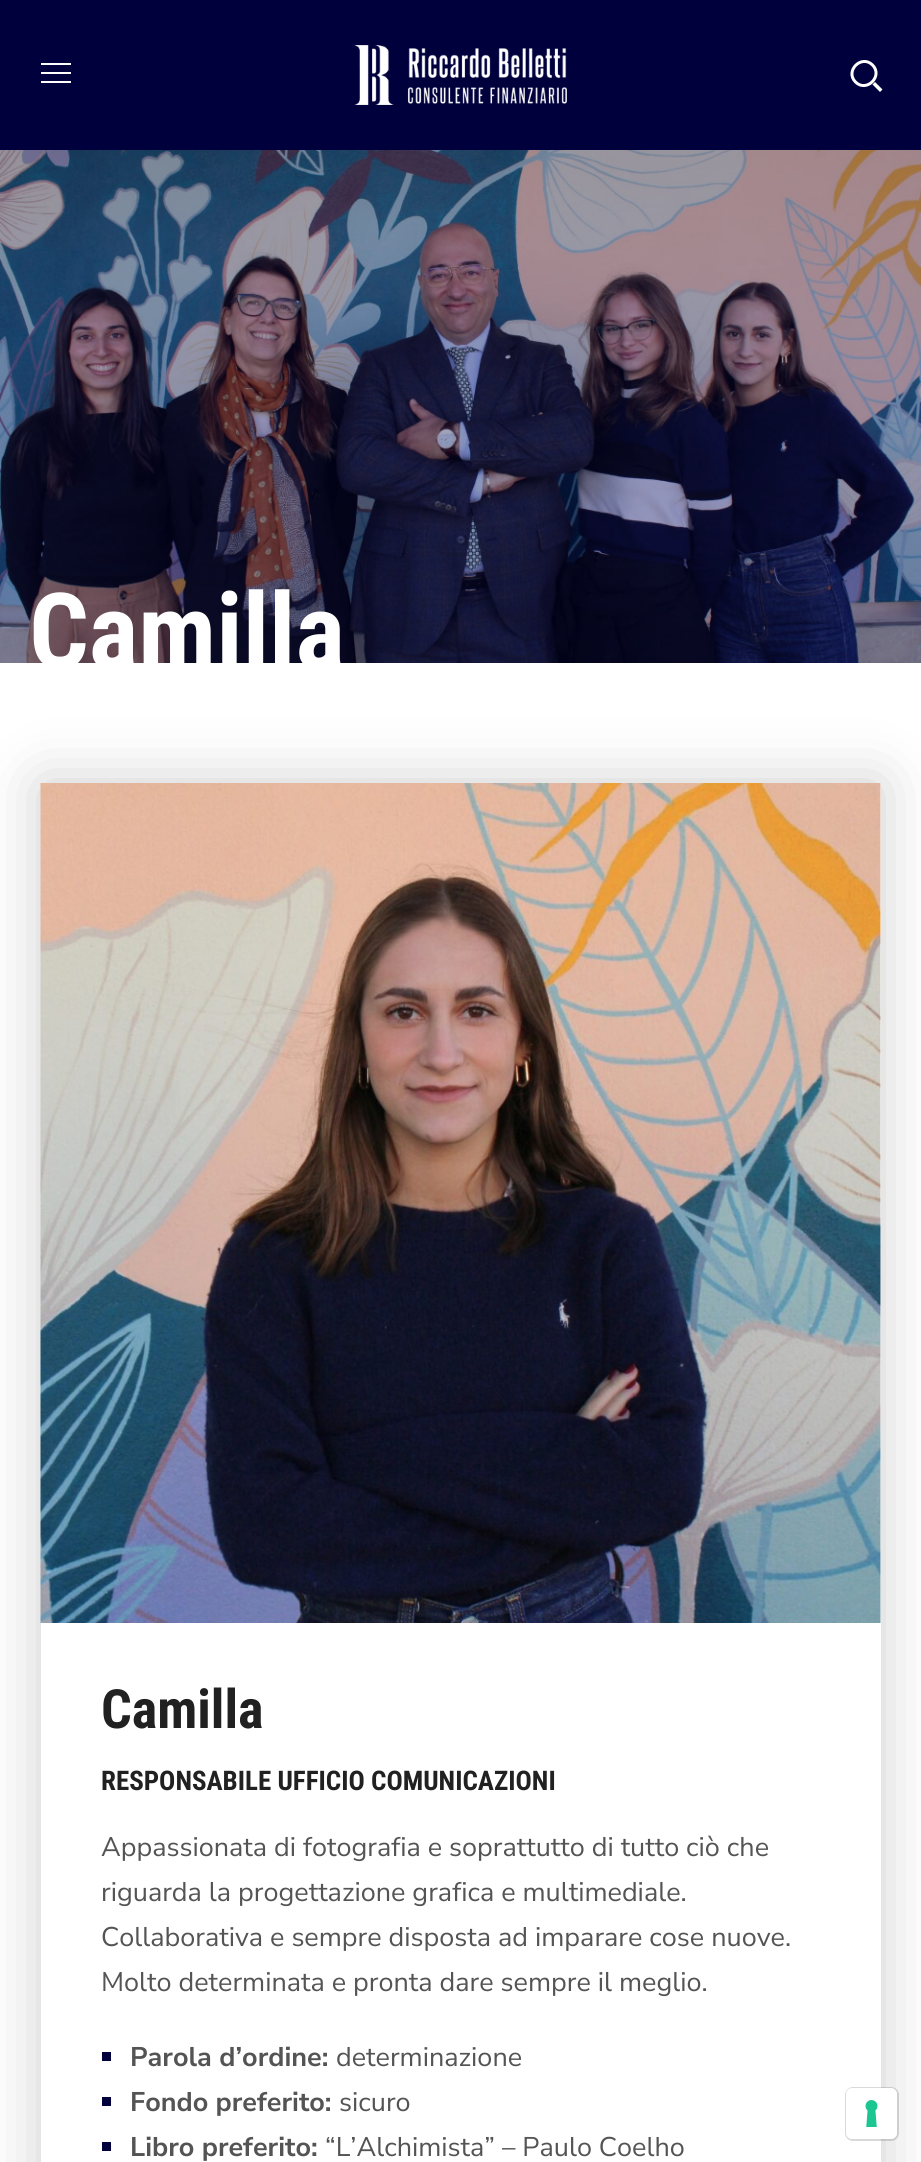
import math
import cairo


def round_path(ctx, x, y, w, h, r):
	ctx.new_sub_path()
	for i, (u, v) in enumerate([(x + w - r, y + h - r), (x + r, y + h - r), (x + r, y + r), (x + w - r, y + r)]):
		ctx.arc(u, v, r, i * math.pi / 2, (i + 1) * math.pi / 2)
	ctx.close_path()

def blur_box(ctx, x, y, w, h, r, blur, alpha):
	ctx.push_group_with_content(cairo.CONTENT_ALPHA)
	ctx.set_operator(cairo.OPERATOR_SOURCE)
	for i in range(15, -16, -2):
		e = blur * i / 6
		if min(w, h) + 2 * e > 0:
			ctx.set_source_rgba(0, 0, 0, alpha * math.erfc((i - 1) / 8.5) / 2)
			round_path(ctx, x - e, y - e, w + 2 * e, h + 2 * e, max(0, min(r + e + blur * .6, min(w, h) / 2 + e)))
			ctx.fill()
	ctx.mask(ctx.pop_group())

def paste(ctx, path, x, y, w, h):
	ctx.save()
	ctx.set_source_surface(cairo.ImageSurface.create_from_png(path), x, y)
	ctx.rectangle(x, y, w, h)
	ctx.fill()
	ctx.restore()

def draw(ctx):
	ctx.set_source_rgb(1, 1, 1)
	ctx.paint()
	ctx.set_source_rgb(0, 0, 0.239)
	ctx.rectangle(0, 0, 921, 150)
	ctx.fill()
	ctx.set_source_rgb(1, 1, 1)
	ctx.rectangle(41, 63, 30, 2)
	ctx.rectangle(41, 72, 30, 2)
	ctx.rectangle(41, 81, 30, 2)
	ctx.fill()
	paste(ctx, 'media/1.png', 354, 45, 213, 60)
	ctx.new_path()
	ctx.move_to(872.5, 65)
	ctx.curve_to(883.5, 76, 866.5, 93, 855.5, 82)
	ctx.curve_to(844.5, 71, 861.5, 54, 872.5, 65)
	ctx.close_path()
	ctx.set_line_width(3)
	ctx.stroke()
	ctx.new_path()
	ctx.move_to(872.5, 84.5)
	ctx.line_to(875, 82)
	ctx.line_to(882.5, 89.5)
	ctx.line_to(880, 92)
	ctx.close_path()
	ctx.fill()
	paste(ctx, 'media/2.png', 0, 150, 921, 513)
	ctx.select_font_face('Roboto Condensed', cairo.FONT_SLANT_NORMAL, cairo.FONT_WEIGHT_BOLD)
	ctx.set_font_size(105)
	ctx.move_to(29, 668)
	ctx.show_text('Camilla')
	ctx.set_source_rgb(0, 0, 0)
	blur_box(ctx, 41, 783, 840, 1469, 0, 30, 0.2)
	ctx.set_source_rgb(1, 1, 1)
	ctx.rectangle(41, 783, 840, 1379)
	ctx.fill()
	paste(ctx, 'media/3.png', 40, 783, 841, 840)
	ctx.set_font_size(54)
	ctx.set_source_rgb(0.129, 0.129, 0.129)
	ctx.move_to(101, 1728)
	ctx.show_text('Camilla')
	ctx.set_font_size(27)
	ctx.move_to(101, 1790)
	ctx.show_text('RESPONSABILE UFFICIO COMUNICAZIONI')
	ctx.select_font_face('Nunito Sans')
	ctx.set_source_rgb(0.329, 0.329, 0.329)
	for x, y, s in [
		(101, 1856, 'Appassionata di fotografia e soprattutto di tutto ciò che'),
		(101, 1901, 'riguarda la progettazione grafica e multimediale.'),
		(101, 1946, 'Collaborativa e sempre disposta ad imparare cose nuove.'),
		(101, 1991, 'Molto determinata e pronta dare sempre il meglio.'),
	]:
		ctx.move_to(x, y)
		ctx.show_text(s)
	ctx.set_source_rgb(0, 0, 0.239)
	ctx.rectangle(102, 2052, 9, 9)
	ctx.fill()
	ctx.select_font_face('Nunito Sans', cairo.FONT_SLANT_NORMAL, cairo.FONT_WEIGHT_BOLD)
	ctx.set_source_rgb(0.329, 0.329, 0.329)
	ctx.move_to(130, 2066)
	ctx.show_text('Parola d’ordine:')
	ctx.select_font_face('Nunito Sans')
	ctx.move_to(336, 2066)
	ctx.show_text('determinazione')
	ctx.set_source_rgb(0, 0, 0.239)
	ctx.rectangle(102, 2097, 9, 9)
	ctx.fill()
	ctx.select_font_face('Nunito Sans', cairo.FONT_SLANT_NORMAL, cairo.FONT_WEIGHT_BOLD)
	ctx.set_source_rgb(0.329, 0.329, 0.329)
	ctx.move_to(130, 2111)
	ctx.show_text('Fondo preferito:')
	ctx.select_font_face('Nunito Sans')
	ctx.move_to(339, 2111)
	ctx.show_text('sicuro')
	ctx.set_source_rgb(0, 0, 0.239)
	ctx.rectangle(102, 2142, 9, 9)
	ctx.fill()
	ctx.select_font_face('Nunito Sans', cairo.FONT_SLANT_NORMAL, cairo.FONT_WEIGHT_BOLD)
	ctx.set_source_rgb(0.329, 0.329, 0.329)
	ctx.move_to(130, 2156)
	ctx.show_text('Libro preferito:')
	ctx.select_font_face('Nunito Sans')
	ctx.move_to(325, 2156)
	ctx.show_text('“L’Alchimista” – Paulo Coelho')
	round_path(ctx, 846, 2088, 52, 52, 7)
	ctx.set_source_rgba(0, 0, 0, 0.15)
	ctx.set_line_width(2)
	ctx.stroke()
	ctx.set_source_rgb(1, 1, 1)
	round_path(ctx, 846, 2088, 51, 51, 6)
	ctx.fill()
	paste(ctx, 'media/4.png', 865, 2100, 13, 27)


surface = cairo.ImageSurface(cairo.FORMAT_RGB24, 921, 2162)
ctx = cairo.Context(surface)
options = cairo.FontOptions()
options.set_hint_metrics(cairo.HINT_METRICS_OFF)
options.set_hint_style(cairo.HINT_STYLE_NONE)
ctx.set_font_options(options)
ctx.set_miter_limit(4)
draw(ctx)
surface.write_to_png('image.png')
